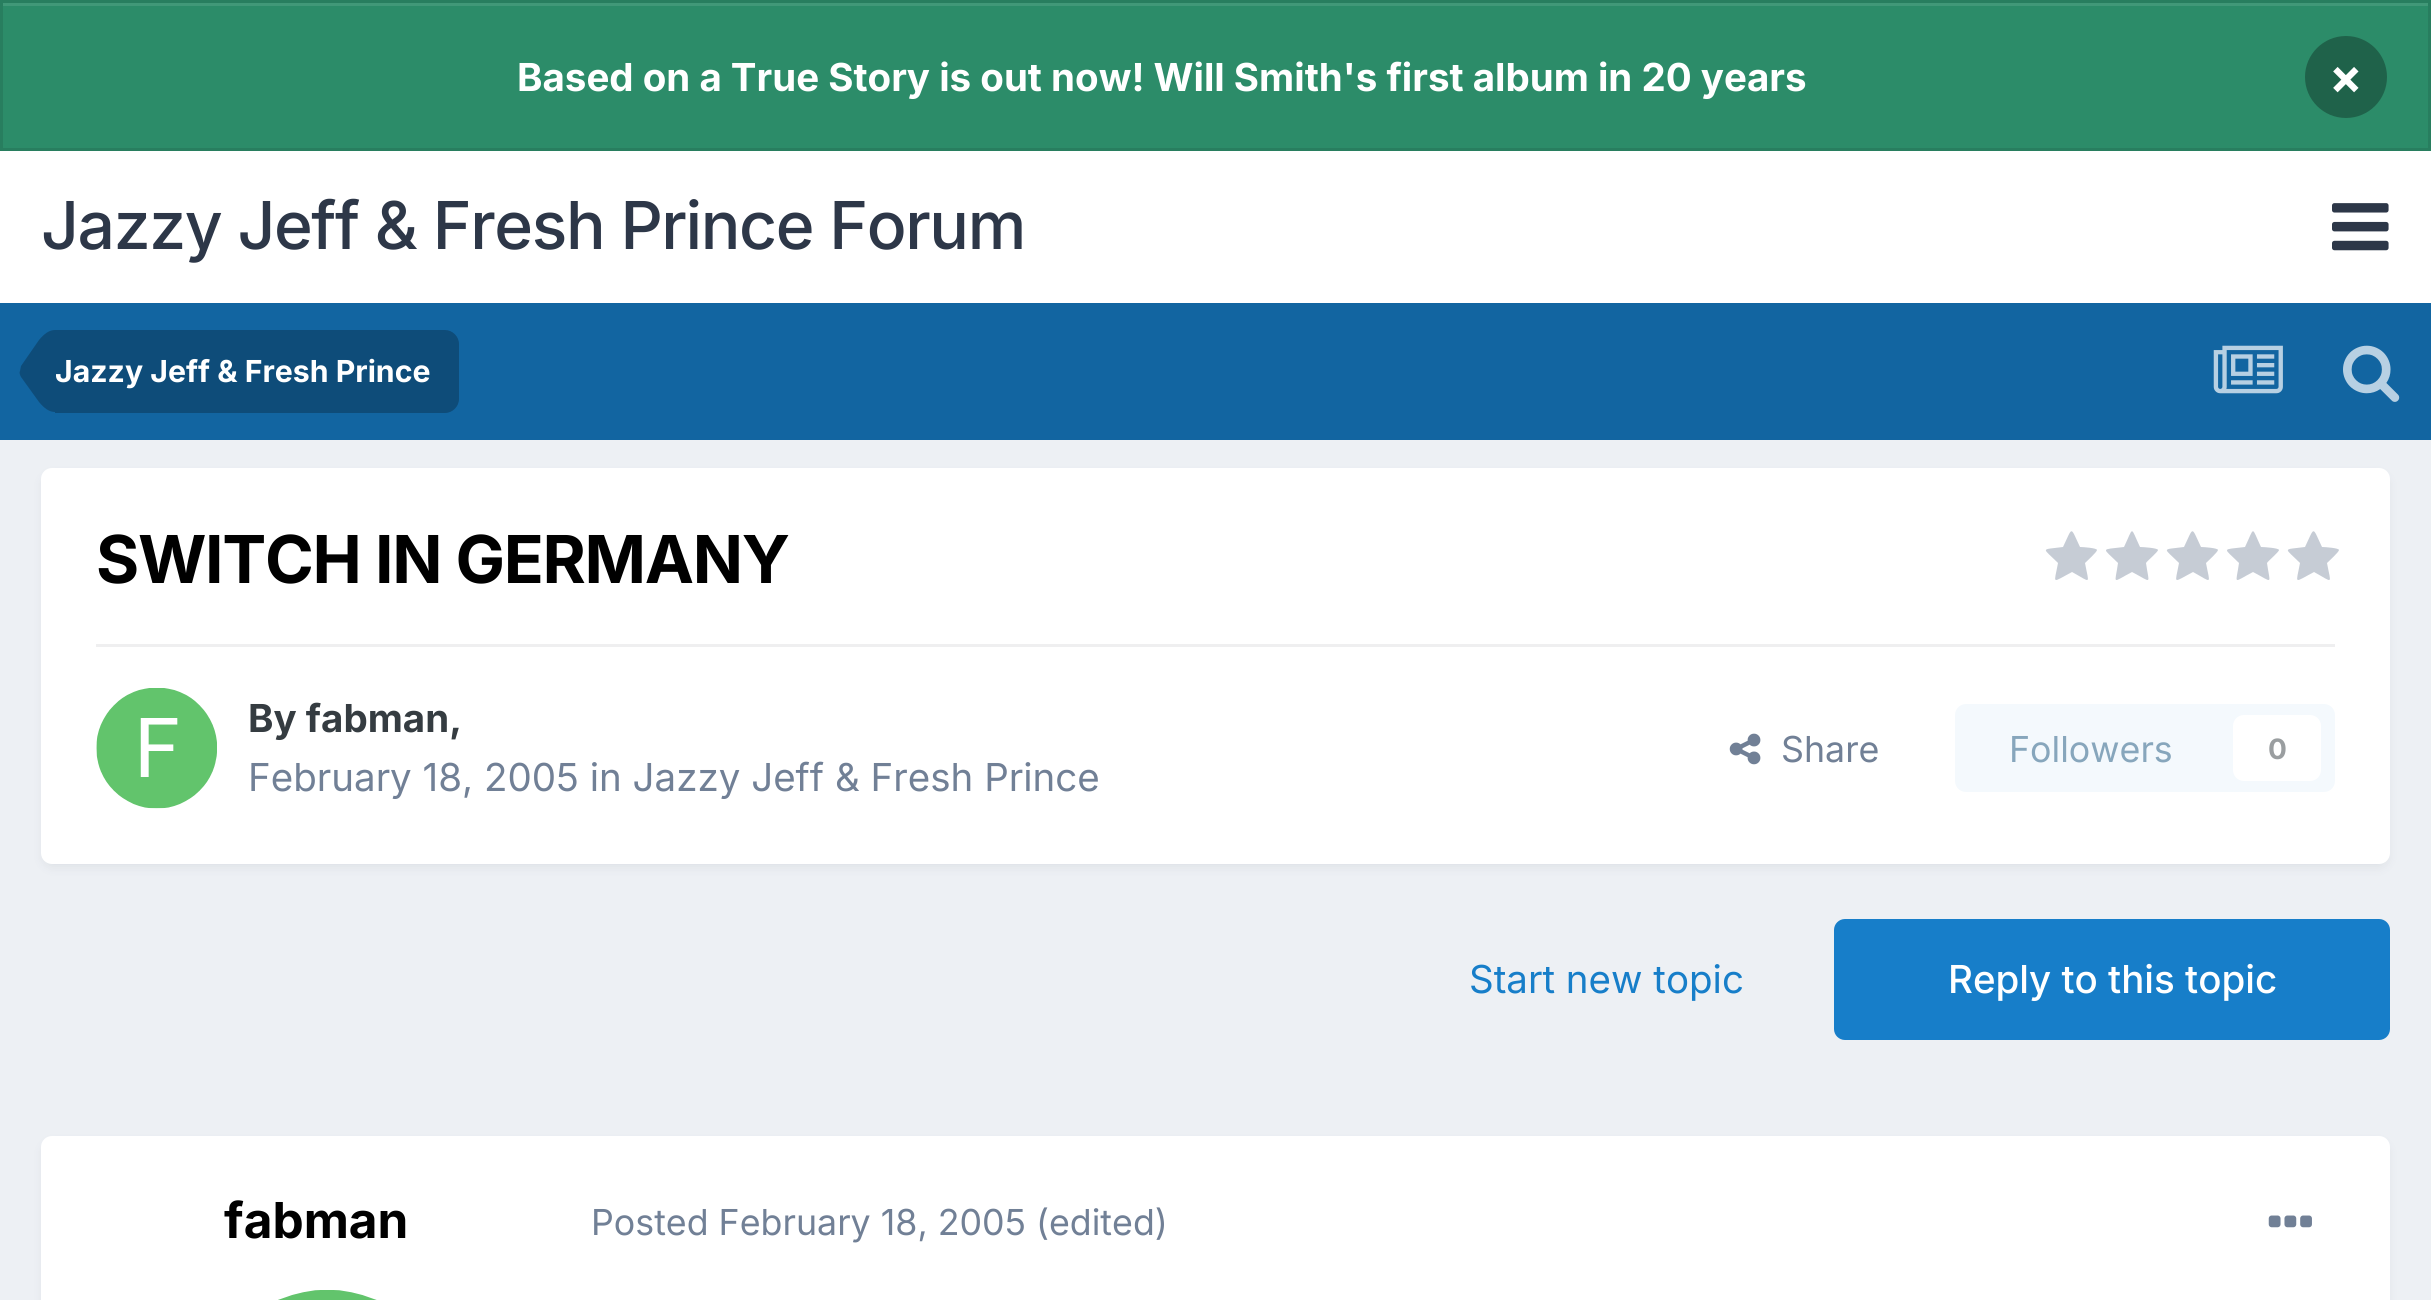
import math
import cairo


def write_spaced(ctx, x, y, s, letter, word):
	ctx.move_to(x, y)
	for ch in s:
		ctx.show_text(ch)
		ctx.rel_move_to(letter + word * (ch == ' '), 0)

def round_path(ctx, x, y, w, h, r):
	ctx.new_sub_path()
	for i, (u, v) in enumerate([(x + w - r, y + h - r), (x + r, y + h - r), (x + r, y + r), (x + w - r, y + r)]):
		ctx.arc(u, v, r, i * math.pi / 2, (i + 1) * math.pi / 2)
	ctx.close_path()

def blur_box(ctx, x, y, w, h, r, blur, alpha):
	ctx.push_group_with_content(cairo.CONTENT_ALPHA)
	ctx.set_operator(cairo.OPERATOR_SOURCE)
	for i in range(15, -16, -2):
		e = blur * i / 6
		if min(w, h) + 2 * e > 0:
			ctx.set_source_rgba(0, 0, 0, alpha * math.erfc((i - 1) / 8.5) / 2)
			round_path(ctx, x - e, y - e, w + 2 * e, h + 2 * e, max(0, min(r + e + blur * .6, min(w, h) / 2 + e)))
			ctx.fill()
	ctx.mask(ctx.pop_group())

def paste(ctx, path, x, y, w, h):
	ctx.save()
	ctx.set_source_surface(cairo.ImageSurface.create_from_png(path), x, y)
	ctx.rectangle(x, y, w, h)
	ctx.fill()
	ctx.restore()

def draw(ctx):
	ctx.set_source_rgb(0.929, 0.941, 0.957)
	ctx.paint()
	ctx.set_source_rgb(0.173, 0.549, 0.412)
	ctx.rectangle(3, 6, 2425, 142)
	ctx.fill()
	ctx.set_source_rgb(0.255, 0.596, 0.471)
	ctx.rectangle(3, 3, 2425, 3)
	ctx.fill()
	ctx.rectangle(1.5, 1.5, 2428, 148)
	ctx.set_source_rgb(0.157, 0.494, 0.373)
	ctx.set_line_width(3)
	ctx.stroke()
	ctx.select_font_face('Inter', cairo.FONT_SLANT_NORMAL, cairo.FONT_WEIGHT_BOLD)
	ctx.set_font_size(38.5)
	ctx.set_source_rgb(1, 1, 1)
	ctx.move_to(517, 91)
	ctx.show_text('Based on a True Story is out now! Will Smith\'s first album in 20 years')
	ctx.set_source_rgb(0.122, 0.384, 0.29)
	ctx.new_path()
	ctx.arc(2346, 77, 41, 0, 2 * math.pi)
	ctx.fill()
	ctx.set_font_size(49.5)
	ctx.set_source_rgb(1, 1, 1)
	ctx.move_to(2329, 94)
	ctx.show_text('×')
	ctx.rectangle(0, 151, 2431, 152)
	ctx.fill()
	ctx.select_font_face('Inter Medium')
	ctx.set_font_size(66)
	ctx.set_source_rgb(0.176, 0.216, 0.282)
	write_spaced(ctx, 41, 249, 'Jazzy Jeff & Fresh Prince Forum', -1.4, 0)
	paste(ctx, 'media/1.png', 2332, 203, 57, 48)
	ctx.set_source_rgb(0.071, 0.396, 0.631)
	ctx.rectangle(0, 303, 2431, 137)
	ctx.fill()
	ctx.set_source_rgb(0.055, 0.298, 0.475)
	ctx.new_path()
	ctx.move_to(55, 330)
	ctx.line_to(445, 330)
	ctx.curve_to(452.5, 330, 459, 336.5, 459, 344)
	ctx.line_to(459, 399)
	ctx.curve_to(459, 406.5, 452.5, 413, 445, 413)
	ctx.line_to(55, 413)
	ctx.close_path()
	ctx.fill()
	ctx.new_path()
	ctx.move_to(55, 412)
	ctx.curve_to(49, 412, 44, 408, 39, 402)
	ctx.line_to(21, 377)
	ctx.curve_to(20, 375, 19, 373, 20, 371)
	ctx.line_to(55, 371)
	ctx.close_path()
	ctx.fill()
	ctx.new_path()
	ctx.move_to(55, 330)
	ctx.line_to(55, 371)
	ctx.line_to(20, 371)
	ctx.line_to(21, 366)
	ctx.line_to(39, 340)
	ctx.curve_to(44, 334, 49, 330, 55, 330)
	ctx.close_path()
	ctx.fill()
	ctx.select_font_face('Inter', cairo.FONT_SLANT_NORMAL, cairo.FONT_WEIGHT_BOLD)
	ctx.set_font_size(30.25)
	ctx.set_source_rgb(1, 1, 1)
	ctx.move_to(55, 382)
	ctx.show_text('Jazzy Jeff & Fresh Prince')
	paste(ctx, 'media/2.png', 2213, 345, 70, 49)
	paste(ctx, 'media/3.png', 2343, 345, 57, 57)
	ctx.set_source_rgb(0.176, 0.216, 0.282)
	blur_box(ctx, 44, 476, 2343, 390, 8, 5.5, 0.1)
	ctx.set_source_rgb(1, 1, 1)
	round_path(ctx, 41, 468, 2349, 396, 11)
	ctx.fill()
	ctx.set_font_size(66)
	ctx.set_source_rgb(0, 0, 0)
	write_spaced(ctx, 96, 583, 'SWITCH IN GERMANY', -1.3, 0)
	ctx.set_source_rgb(0.776, 0.8, 0.835)
	ctx.new_path()
	ctx.move_to(2097, 550)
	ctx.curve_to(2097, 552, 2087, 561, 2085, 563)
	ctx.curve_to(2089, 585, 2092, 583, 2072, 572)
	ctx.curve_to(2051, 583, 2054, 585, 2058, 563)
	ctx.curve_to(2042, 547, 2040, 550, 2063, 547)
	ctx.curve_to(2073, 526, 2070, 526, 2080, 547)
	ctx.curve_to(2083, 547, 2097, 548, 2097, 550)
	ctx.close_path()
	ctx.fill()
	ctx.new_path()
	ctx.move_to(2158, 550)
	ctx.curve_to(2158, 552, 2147, 561, 2146, 563)
	ctx.curve_to(2149, 585, 2153, 583, 2132, 572)
	ctx.curve_to(2111, 583, 2115, 585, 2118, 563)
	ctx.curve_to(2102, 547, 2100, 550, 2124, 547)
	ctx.curve_to(2134, 526, 2130, 526, 2140, 547)
	ctx.curve_to(2143, 547, 2158, 548, 2158, 550)
	ctx.close_path()
	ctx.fill()
	ctx.new_path()
	ctx.move_to(2218, 550)
	ctx.curve_to(2218, 552, 2208, 561, 2206, 563)
	ctx.curve_to(2210, 585, 2213, 583, 2193, 572)
	ctx.curve_to(2172, 583, 2175, 585, 2179, 563)
	ctx.curve_to(2163, 547, 2161, 550, 2184, 547)
	ctx.curve_to(2194, 526, 2191, 526, 2201, 547)
	ctx.curve_to(2204, 547, 2218, 548, 2218, 550)
	ctx.close_path()
	ctx.fill()
	ctx.new_path()
	ctx.move_to(2279, 550)
	ctx.curve_to(2279, 552, 2268, 561, 2267, 563)
	ctx.curve_to(2270, 585, 2274, 583, 2253, 572)
	ctx.curve_to(2232, 583, 2236, 585, 2239, 563)
	ctx.curve_to(2223, 547, 2221, 550, 2245, 547)
	ctx.curve_to(2255, 526, 2251, 526, 2261, 547)
	ctx.curve_to(2264, 547, 2279, 548, 2279, 550)
	ctx.close_path()
	ctx.fill()
	ctx.new_path()
	ctx.move_to(2339, 550)
	ctx.curve_to(2339, 552, 2329, 561, 2327, 563)
	ctx.curve_to(2331, 585, 2334, 583, 2314, 572)
	ctx.curve_to(2293, 583, 2296, 585, 2300, 563)
	ctx.curve_to(2284, 547, 2282, 550, 2305, 547)
	ctx.curve_to(2315, 526, 2312, 526, 2322, 547)
	ctx.curve_to(2325, 547, 2339, 548, 2339, 550)
	ctx.close_path()
	ctx.fill()
	ctx.set_source_rgb(0.937, 0.937, 0.941)
	ctx.rectangle(96, 644, 2239, 3)
	ctx.fill()
	paste(ctx, 'media/4.png', 96, 688, 121, 121)
	ctx.set_font_size(38.5)
	ctx.set_source_rgb(0.208, 0.235, 0.255)
	ctx.move_to(248, 732)
	ctx.show_text('By fabman,')
	ctx.select_font_face('Inter')
	ctx.set_source_rgb(0.443, 0.502, 0.588)
	ctx.move_to(248, 791)
	ctx.show_text('February 18, 2005 in Jazzy Jeff & Fresh Prince')
	paste(ctx, 'media/5.png', 1729, 733, 32, 32)
	ctx.set_font_size(35.75)
	ctx.move_to(1781, 762)
	ctx.show_text('Share')
	ctx.set_source_rgb(0.957, 0.976, 0.992)
	round_path(ctx, 1955, 704, 380, 88, 11)
	ctx.fill()
	ctx.set_source_rgb(0.529, 0.651, 0.737)
	ctx.move_to(2009, 762)
	ctx.show_text('Followers')
	ctx.set_source_rgb(1, 1, 1)
	round_path(ctx, 2233, 715, 88, 66, 11)
	ctx.fill()
	ctx.select_font_face('Inter', cairo.FONT_SLANT_NORMAL, cairo.FONT_WEIGHT_BOLD)
	ctx.set_font_size(28)
	ctx.set_source_rgb(0.604, 0.62, 0.627)
	ctx.move_to(2268, 759)
	ctx.show_text('0')
	ctx.select_font_face('Inter')
	ctx.set_font_size(38.5)
	ctx.set_source_rgb(0.09, 0.494, 0.788)
	ctx.move_to(1469, 993)
	ctx.show_text('Start new topic')
	round_path(ctx, 1834, 919, 556, 121, 11)
	ctx.fill()
	ctx.select_font_face('Inter Medium')
	ctx.set_source_rgb(1, 1, 1)
	ctx.move_to(1948, 993)
	ctx.show_text('Reply to this topic')
	ctx.set_source_rgb(0.176, 0.216, 0.282)
	blur_box(ctx, 44, 1144, 2343, 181, 8, 5.5, 0.1)
	ctx.set_source_rgb(1, 1, 1)
	round_path(ctx, 41, 1136, 2349, 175, 11)
	ctx.fill()
	ctx.select_font_face('Inter', cairo.FONT_SLANT_NORMAL, cairo.FONT_WEIGHT_BOLD)
	ctx.set_font_size(49.5)
	ctx.set_source_rgb(0, 0, 0)
	ctx.move_to(224, 1238)
	ctx.show_text('fabman')
	paste(ctx, 'media/6.png', 278, 1290, 99, 10)
	ctx.select_font_face('Inter')
	ctx.set_font_size(35.75)
	ctx.set_source_rgb(0.443, 0.502, 0.588)
	ctx.move_to(591, 1235)
	ctx.show_text('Posted February 18, 2005 (edited)')
	paste(ctx, 'media/7.png', 2268, 1215, 44, 13)


surface = cairo.ImageSurface(cairo.FORMAT_RGB24, 2431, 1300)
ctx = cairo.Context(surface)
options = cairo.FontOptions()
options.set_hint_metrics(cairo.HINT_METRICS_OFF)
options.set_hint_style(cairo.HINT_STYLE_NONE)
ctx.set_font_options(options)
ctx.set_miter_limit(4)
draw(ctx)
surface.write_to_png('image.png')
